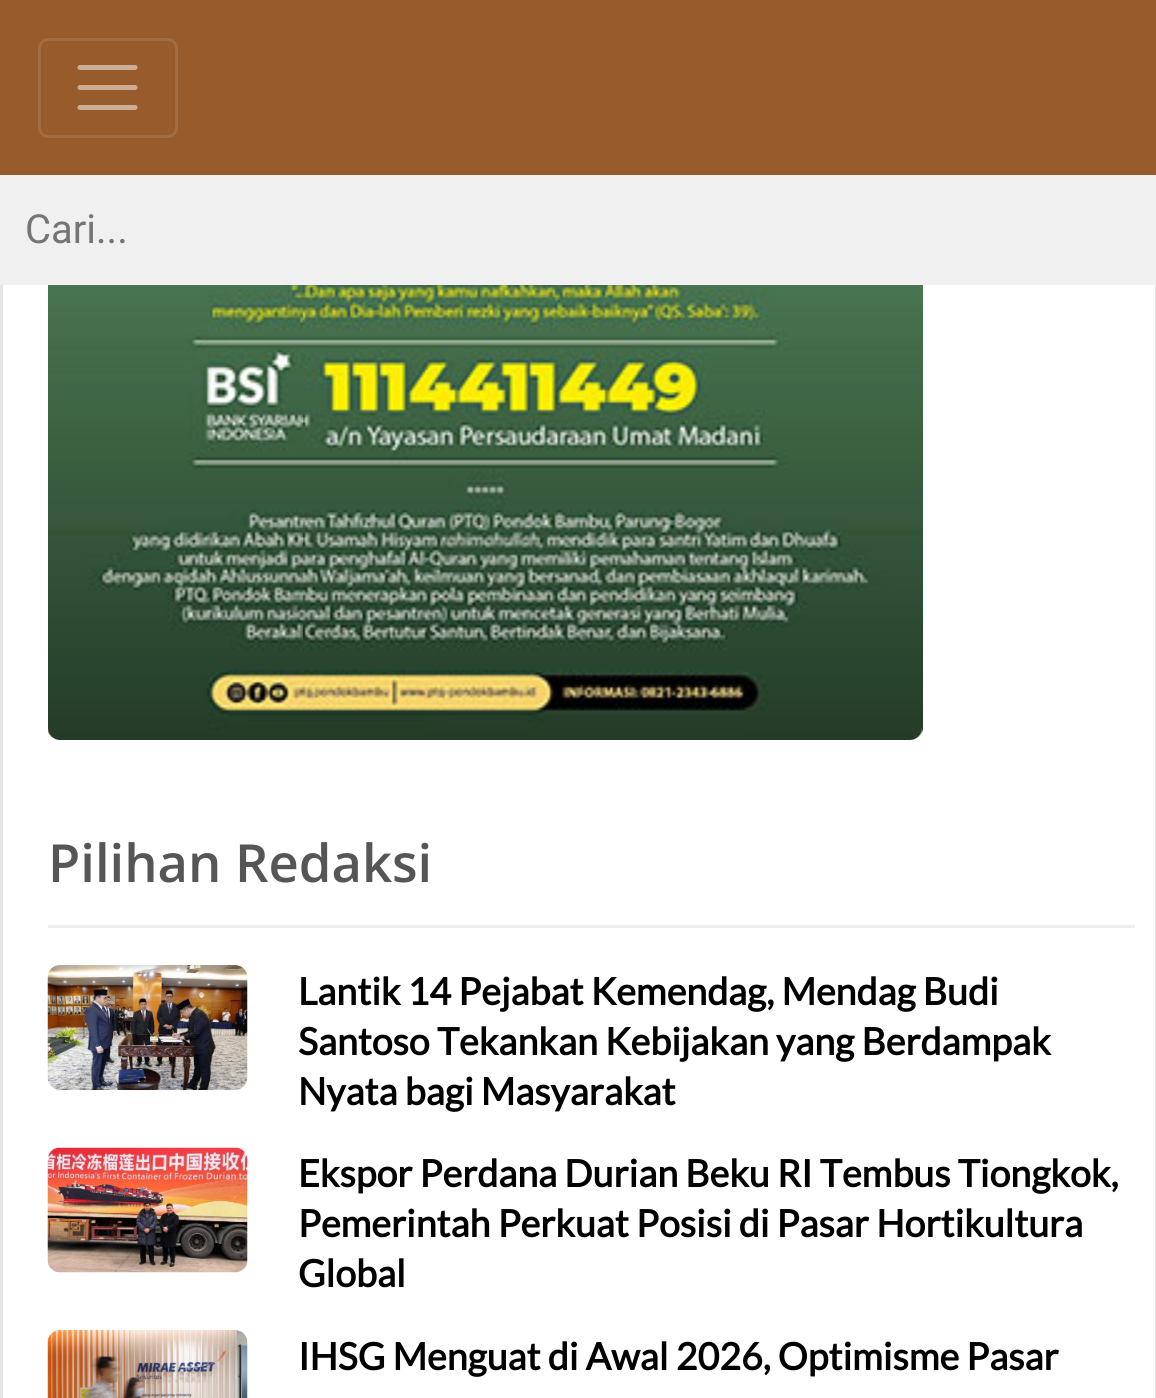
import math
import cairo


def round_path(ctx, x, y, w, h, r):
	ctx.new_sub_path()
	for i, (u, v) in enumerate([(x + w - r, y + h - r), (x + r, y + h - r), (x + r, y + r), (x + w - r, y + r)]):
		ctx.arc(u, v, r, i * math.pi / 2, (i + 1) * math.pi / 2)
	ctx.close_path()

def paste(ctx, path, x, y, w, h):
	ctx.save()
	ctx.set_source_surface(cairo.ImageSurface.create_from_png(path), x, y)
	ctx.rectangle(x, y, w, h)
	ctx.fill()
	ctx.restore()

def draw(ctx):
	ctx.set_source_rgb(1, 1, 1)
	ctx.paint()
	ctx.set_source_rgb(0.898, 0.898, 0.898)
	ctx.rectangle(1155, 285, 1, 1113)
	ctx.rectangle(0, 285, 3, 1113)
	ctx.fill()
	ctx.set_source_rgb(0.596, 0.357, 0.169)
	ctx.rectangle(0, 0, 1156, 175)
	ctx.fill()
	round_path(ctx, 39.5, 39.5, 137, 97, 8.5)
	ctx.set_source_rgb(0.635, 0.42, 0.251)
	ctx.set_line_width(3)
	ctx.stroke()
	ctx.new_path()
	ctx.move_to(80, 67.5)
	ctx.line_to(135, 67.5)
	ctx.move_to(80, 87.5)
	ctx.line_to(135, 87.5)
	ctx.move_to(80, 107.5)
	ctx.line_to(135, 107.5)
	ctx.set_source_rgb(0.8, 0.678, 0.584)
	ctx.set_line_width(5)
	ctx.set_line_cap(cairo.LINE_CAP_ROUND)
	ctx.stroke()
	ctx.set_source_rgb(0.941, 0.941, 0.941)
	ctx.rectangle(0, 175, 1156, 110)
	ctx.fill()
	ctx.select_font_face('Roboto')
	ctx.set_font_size(40)
	ctx.set_source_rgb(0.459, 0.459, 0.459)
	ctx.move_to(25, 243)
	ctx.show_text('Cari...')
	paste(ctx, 'media/1.png', 48, 285, 875, 455)
	ctx.set_source_rgb(0.937, 0.937, 0.937)
	ctx.rectangle(48, 925, 1087, 3)
	ctx.fill()
	ctx.select_font_face('Open Sans SemiBold')
	ctx.set_font_size(52.5)
	ctx.set_source_rgb(0.337, 0.337, 0.337)
	ctx.move_to(48, 882)
	ctx.show_text('Pilihan Redaksi')
	paste(ctx, 'media/2.png', 47, 965, 201, 125)
	ctx.select_font_face('Lato', cairo.FONT_SLANT_NORMAL, cairo.FONT_WEIGHT_BOLD)
	ctx.set_font_size(37.5)
	ctx.set_source_rgb(0, 0, 0)
	for x, y, s in [
		(298, 1005, 'Lantik 14 Pejabat Kemendag, Mendag Budi'),
		(298, 1055, 'Santoso Tekankan Kebijakan yang Berdampak'),
		(298, 1105, 'Nyata bagi Masyarakat'),
	]:
		ctx.move_to(x, y)
		ctx.show_text(s)
	paste(ctx, 'media/3.png', 47, 1147, 201, 126)
	for x, y, s in [
		(298, 1187, 'Ekspor Perdana Durian Beku RI Tembus Tiongkok,'),
		(298, 1237, 'Pemerintah Perkuat Posisi di Pasar Hortikultura'),
		(298, 1287, 'Global'),
	]:
		ctx.move_to(x, y)
		ctx.show_text(s)
	paste(ctx, 'media/4.png', 47, 1330, 201, 68)
	ctx.move_to(298, 1370)
	ctx.show_text('IHSG Menguat di Awal 2026, Optimisme Pasar')


surface = cairo.ImageSurface(cairo.FORMAT_RGB24, 1156, 1398)
ctx = cairo.Context(surface)
options = cairo.FontOptions()
options.set_hint_metrics(cairo.HINT_METRICS_OFF)
options.set_hint_style(cairo.HINT_STYLE_NONE)
ctx.set_font_options(options)
ctx.set_miter_limit(4)
draw(ctx)
surface.write_to_png('image.png')
